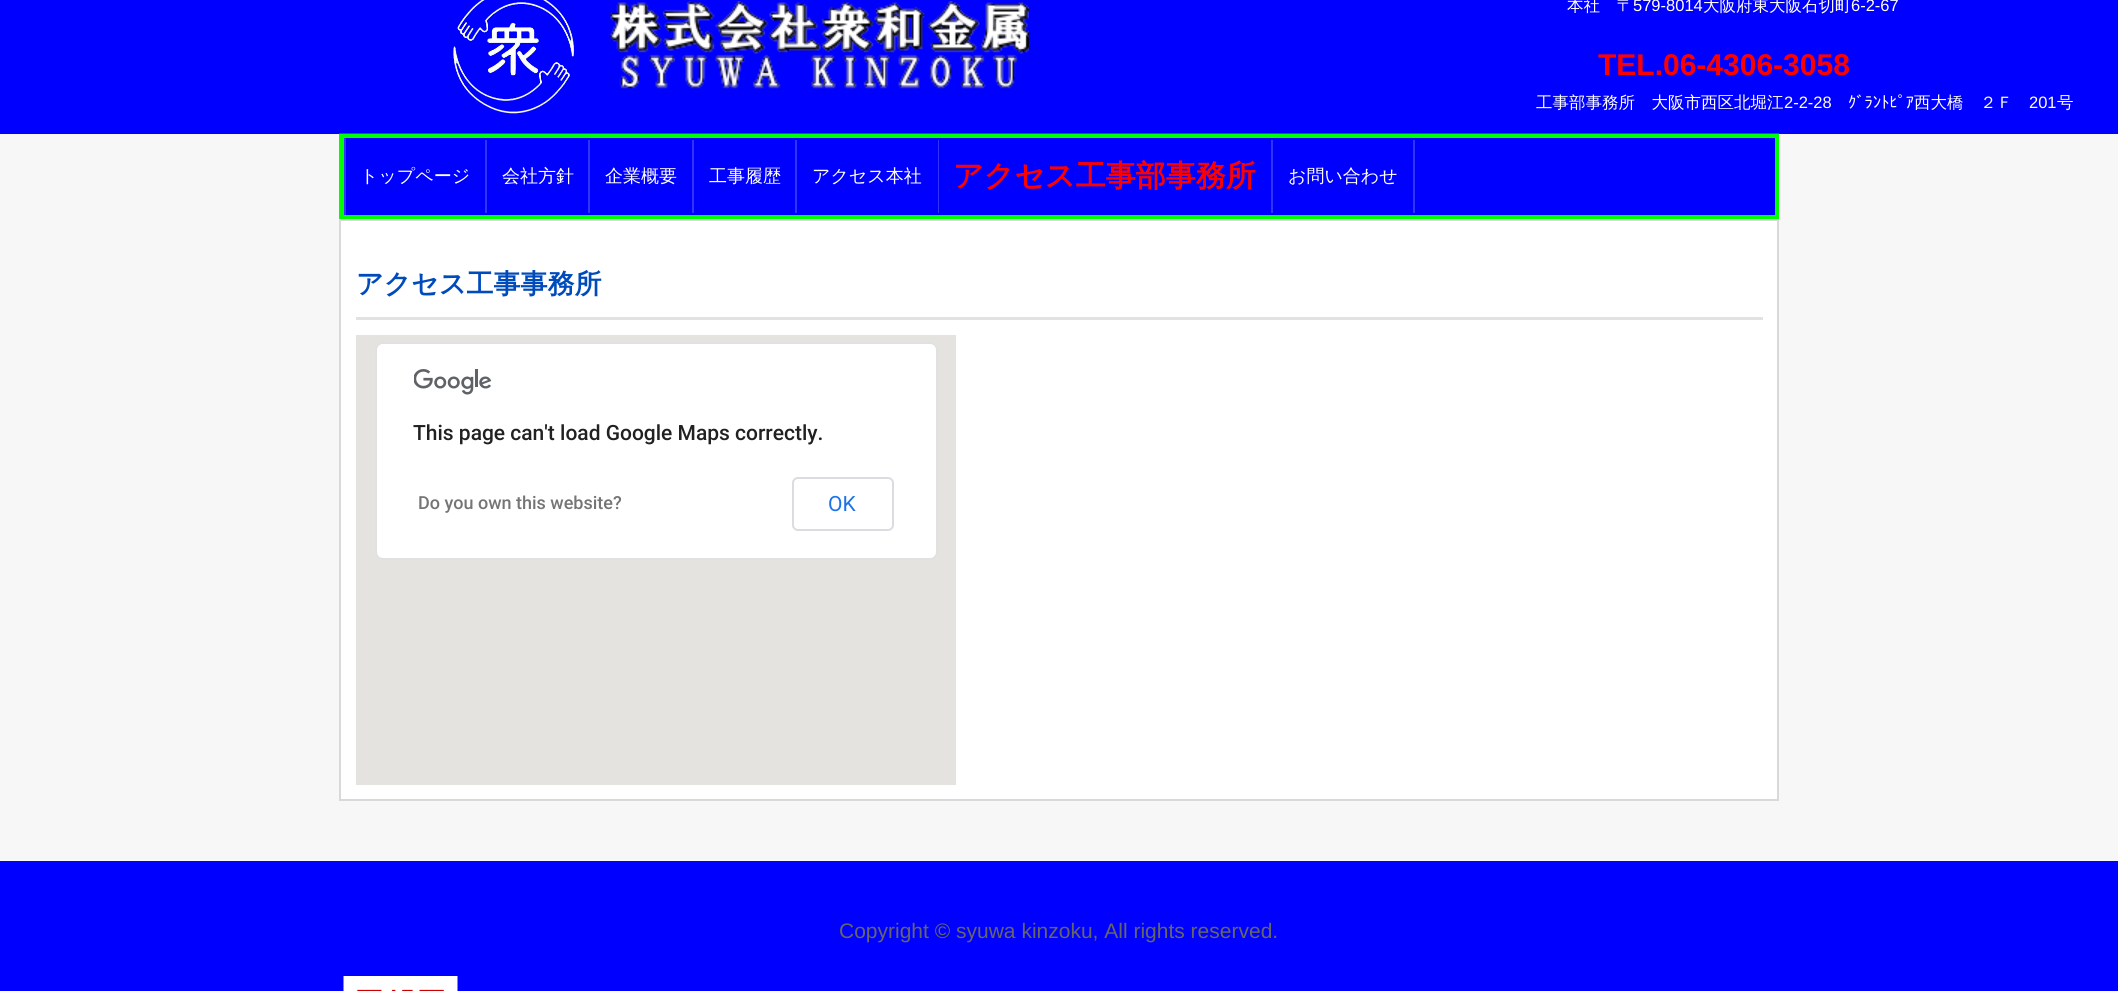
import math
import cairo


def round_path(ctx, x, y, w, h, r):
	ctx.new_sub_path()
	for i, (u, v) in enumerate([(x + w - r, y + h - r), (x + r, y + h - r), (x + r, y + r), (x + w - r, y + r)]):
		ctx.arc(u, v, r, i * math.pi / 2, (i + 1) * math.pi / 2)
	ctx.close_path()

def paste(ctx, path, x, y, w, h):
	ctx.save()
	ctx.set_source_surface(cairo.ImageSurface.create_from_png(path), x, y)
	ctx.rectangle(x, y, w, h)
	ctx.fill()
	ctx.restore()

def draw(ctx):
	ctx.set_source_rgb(0.965, 0.965, 0.965)
	ctx.paint()
	ctx.set_source_rgb(0, 0, 1)
	ctx.rectangle(0, 0, 2118, 134)
	ctx.fill()
	paste(ctx, 'media/1.png', 452, 0, 124, 115)
	paste(ctx, 'media/2.png', 610, 1, 419, 88)
	ctx.select_font_face('WenQuanYi Zen Hei Medium')
	ctx.set_font_size(16.5)
	ctx.set_source_rgb(1, 1, 1)
	ctx.move_to(1567, 11)
	ctx.show_text('本社　〒')
	ctx.select_font_face('Liberation Sans')
	ctx.move_to(1633, 11)
	ctx.show_text('579-8014')
	ctx.select_font_face('WenQuanYi Zen Hei Medium')
	ctx.move_to(1703, 11)
	ctx.show_text('大阪府東大阪石切町')
	ctx.select_font_face('Liberation Sans')
	ctx.move_to(1851, 11)
	ctx.show_text('6-2-67')
	ctx.select_font_face('Liberation Sans', cairo.FONT_SLANT_NORMAL, cairo.FONT_WEIGHT_BOLD)
	ctx.set_font_size(30)
	ctx.set_source_rgb(1, 0, 0)
	ctx.move_to(1598, 75)
	ctx.show_text('TEL.06-4306-3058')
	ctx.select_font_face('WenQuanYi Zen Hei Medium')
	ctx.set_font_size(16.5)
	ctx.set_source_rgb(1, 1, 1)
	ctx.move_to(1536, 108)
	ctx.show_text('工事部事務所　大阪市西区北堀江')
	ctx.select_font_face('Liberation Sans')
	ctx.move_to(1784, 108)
	ctx.show_text('2-2-28')
	ctx.select_font_face('IPAPGothic')
	ctx.move_to(1848, 108)
	ctx.show_text('ｸﾞﾗﾝﾄﾋﾟｱ')
	ctx.select_font_face('WenQuanYi Zen Hei Medium')
	ctx.move_to(1914, 108)
	ctx.show_text('西大橋　２Ｆ')
	ctx.select_font_face('Liberation Sans')
	ctx.move_to(2029, 108)
	ctx.show_text('201')
	ctx.select_font_face('WenQuanYi Zen Hei Medium')
	ctx.move_to(2057, 108)
	ctx.show_text('号')
	paste(ctx, 'media/3.png', 339, 133, 1440, 1)
	ctx.rectangle(341.5, 136.5, 1435, 80)
	ctx.set_source_rgb(0, 1, 0)
	ctx.set_line_width(5)
	ctx.stroke()
	ctx.set_source_rgb(0, 0, 1)
	ctx.rectangle(346, 138, 1429, 77)
	ctx.fill()
	ctx.set_source_rgb(0.2, 0.2, 1)
	ctx.rectangle(344, 138, 2, 77)
	ctx.rectangle(485, 140, 2, 73)
	ctx.fill()
	ctx.set_font_size(18)
	ctx.set_source_rgb(1, 1, 1)
	ctx.move_to(360, 182)
	ctx.show_text('トップページ')
	ctx.set_source_rgb(0.2, 0.2, 1)
	ctx.rectangle(588, 140, 2, 73)
	ctx.fill()
	ctx.set_source_rgb(1, 1, 1)
	ctx.move_to(502, 182)
	ctx.show_text('会社方針')
	ctx.set_source_rgb(0.2, 0.2, 1)
	ctx.rectangle(692, 140, 2, 73)
	ctx.fill()
	ctx.set_source_rgb(1, 1, 1)
	ctx.move_to(605, 182)
	ctx.show_text('企業概要')
	ctx.set_source_rgb(0.2, 0.2, 1)
	ctx.rectangle(795, 140, 2, 73)
	ctx.fill()
	ctx.set_source_rgb(1, 1, 1)
	ctx.move_to(709, 182)
	ctx.show_text('工事履歴')
	ctx.set_source_rgb(0.2, 0.2, 1)
	ctx.rectangle(938, 140, 1, 73)
	ctx.fill()
	ctx.set_source_rgb(1, 1, 1)
	ctx.move_to(812, 182)
	ctx.show_text('アクセス本社')
	ctx.set_source_rgb(0.2, 0.2, 1)
	ctx.rectangle(1271, 140, 2, 73)
	ctx.fill()
	ctx.select_font_face('WenQuanYi Zen Hei', cairo.FONT_SLANT_NORMAL, cairo.FONT_WEIGHT_BOLD)
	ctx.set_font_size(30)
	ctx.set_source_rgb(1, 0, 0)
	ctx.move_to(953, 186)
	ctx.show_text('アクセス工事部事務所')
	ctx.set_source_rgb(0.2, 0.2, 1)
	ctx.rectangle(1413, 140, 2, 73)
	ctx.fill()
	ctx.select_font_face('WenQuanYi Zen Hei Medium')
	ctx.set_font_size(18)
	ctx.set_source_rgb(1, 1, 1)
	ctx.move_to(1288, 182)
	ctx.show_text('お問い合わせ')
	ctx.rectangle(340, 220, 1438, 580)
	ctx.fill_preserve()
	ctx.set_source_rgb(0.851, 0.851, 0.851)
	ctx.set_line_width(2)
	ctx.stroke()
	ctx.set_source_rgb(0.886, 0.886, 0.886)
	ctx.rectangle(356, 317, 1407, 3)
	ctx.fill()
	ctx.select_font_face('WenQuanYi Zen Hei', cairo.FONT_SLANT_NORMAL, cairo.FONT_WEIGHT_BOLD)
	ctx.set_font_size(27)
	ctx.set_source_rgb(0, 0.294, 0.737)
	ctx.move_to(356, 293)
	ctx.show_text('アクセス工事事務所')
	ctx.set_source_rgb(0.898, 0.89, 0.875)
	ctx.rectangle(356, 335, 600, 450)
	ctx.fill()
	ctx.set_source_rgb(1, 1, 1)
	round_path(ctx, 375, 342, 563, 218, 8)
	ctx.fill()
	round_path(ctx, 376, 343, 561, 216, 7)
	ctx.set_source_rgba(0, 0, 0, 0.12)
	ctx.stroke()
	paste(ctx, 'media/4.png', 414, 369, 78, 26)
	ctx.select_font_face('Roboto Medium')
	ctx.set_font_size(21)
	ctx.set_source_rgb(0.129, 0.129, 0.129)
	ctx.move_to(413, 440)
	ctx.show_text('This page can\'t load Google Maps correctly.')
	ctx.set_font_size(18)
	ctx.set_source_rgb(0.459, 0.459, 0.459)
	ctx.move_to(418, 509)
	ctx.show_text('Do you own this website?')
	round_path(ctx, 793, 478, 100, 52, 5)
	ctx.set_source_rgb(0.855, 0.863, 0.878)
	ctx.stroke()
	ctx.select_font_face('Roboto')
	ctx.set_font_size(21)
	ctx.set_source_rgb(0.102, 0.451, 0.91)
	ctx.move_to(828, 511)
	ctx.show_text('OK')
	ctx.set_source_rgb(0, 0, 1)
	ctx.rectangle(0, 861, 2118, 130)
	ctx.fill()
	ctx.select_font_face('Liberation Sans')
	ctx.set_source_rgb(0.4, 0.4, 0.4)
	ctx.move_to(839, 938)
	ctx.show_text('Copyright © syuwa kinzoku, All rights reserved.')
	paste(ctx, 'media/5.png', 343, 976, 115, 15)


surface = cairo.ImageSurface(cairo.FORMAT_RGB24, 2118, 991)
ctx = cairo.Context(surface)
options = cairo.FontOptions()
options.set_hint_metrics(cairo.HINT_METRICS_OFF)
options.set_hint_style(cairo.HINT_STYLE_NONE)
ctx.set_font_options(options)
ctx.set_miter_limit(4)
draw(ctx)
surface.write_to_png('image.png')
